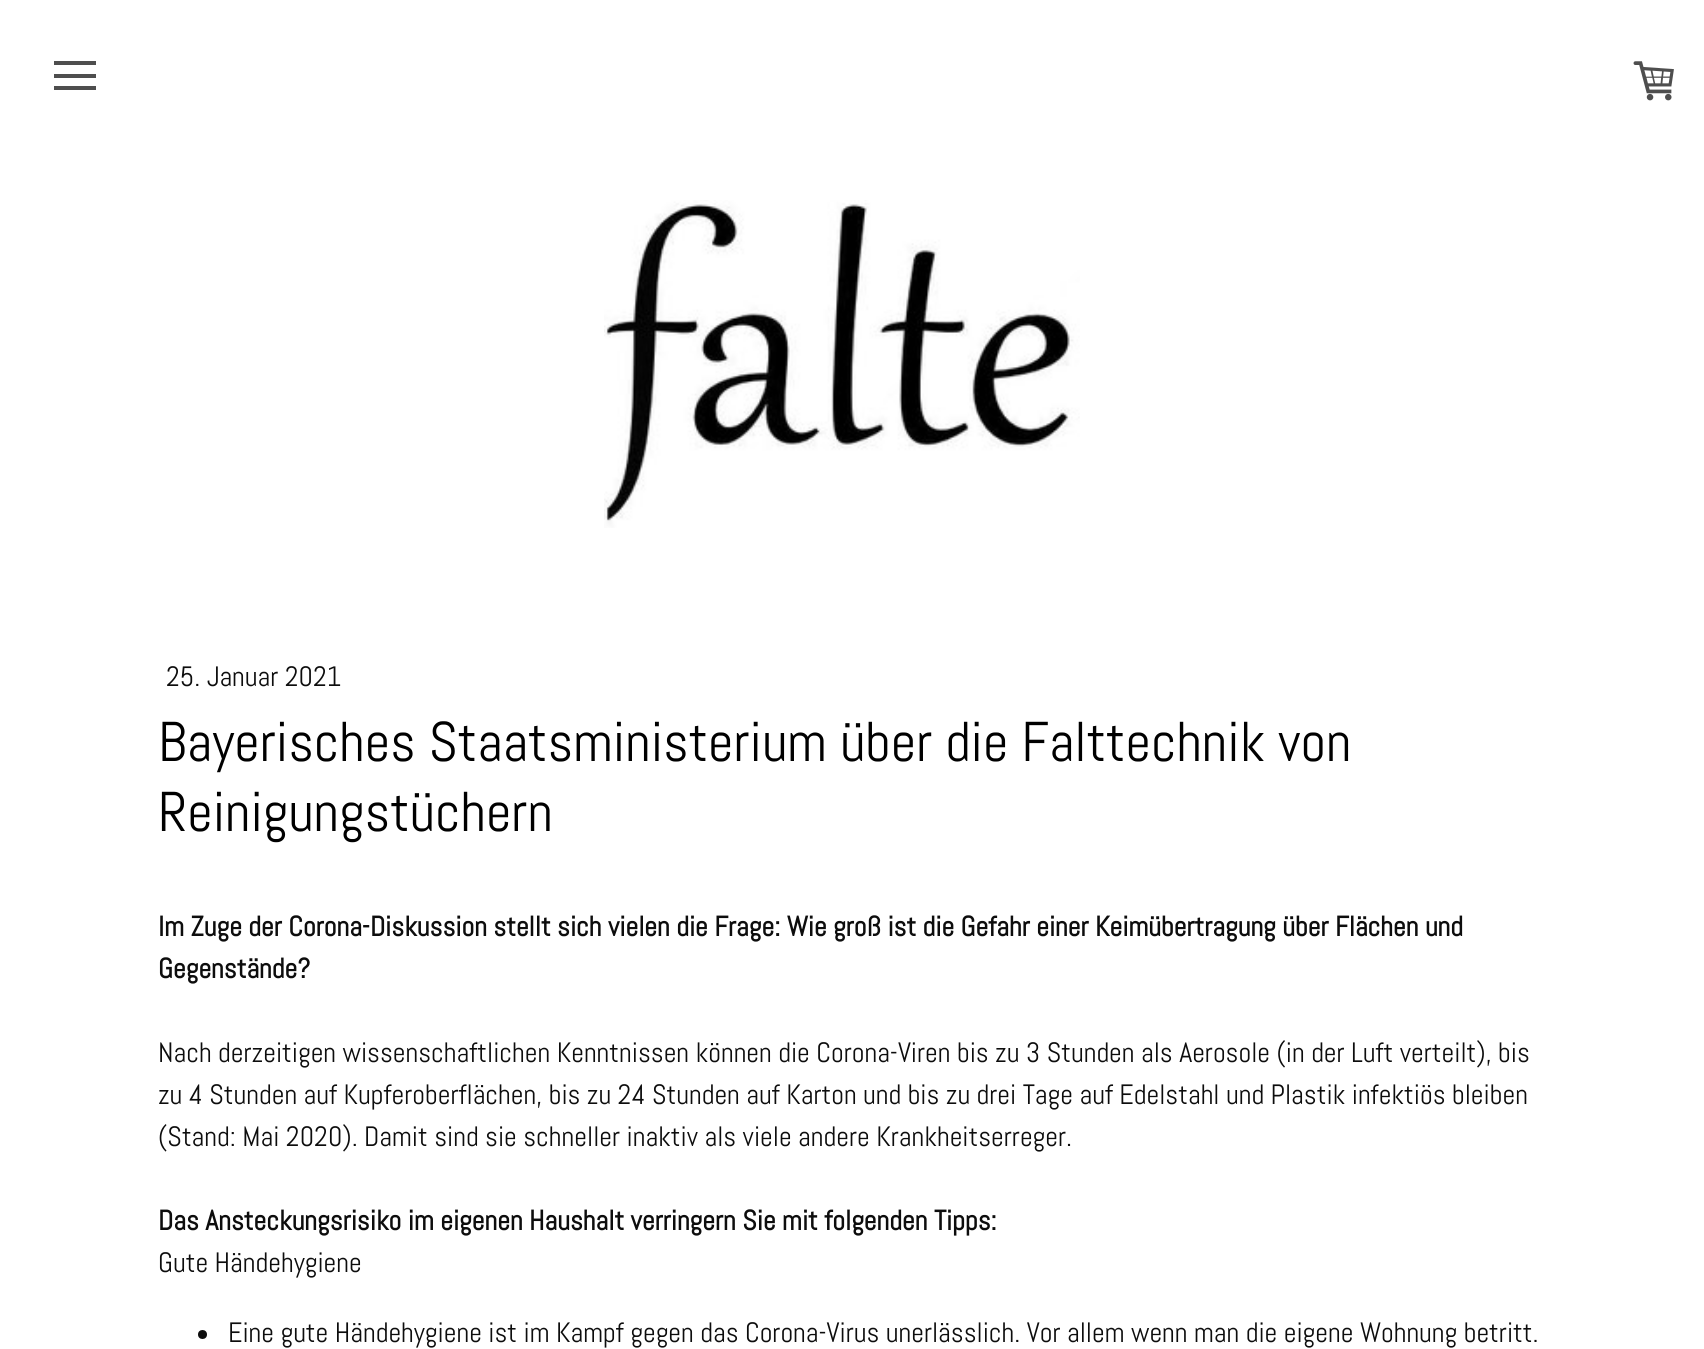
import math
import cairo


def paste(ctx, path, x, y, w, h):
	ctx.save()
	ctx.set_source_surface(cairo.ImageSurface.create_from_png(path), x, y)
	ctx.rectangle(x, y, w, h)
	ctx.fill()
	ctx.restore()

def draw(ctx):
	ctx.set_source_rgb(1, 1, 1)
	ctx.paint()
	ctx.set_source_rgb(0.306, 0.306, 0.306)
	ctx.rectangle(54, 74, 42, 4)
	ctx.rectangle(54, 61, 42, 4)
	ctx.rectangle(54, 86, 42, 4)
	ctx.fill()
	paste(ctx, 'media/1.png', 1633, 61, 41, 40)
	paste(ctx, 'media/2.png', 604, 200, 476, 328)
	ctx.select_font_face('Abel')
	ctx.set_font_size(28)
	ctx.set_source_rgb(0.051, 0.051, 0.051)
	ctx.move_to(166, 686)
	ctx.show_text('25. Januar 2021')
	ctx.set_font_size(56)
	ctx.set_source_rgb(0, 0, 0)
	ctx.move_to(158, 761)
	ctx.show_text('Bayerisches Staatsministerium über die Falttechnik von')
	ctx.move_to(158, 831)
	ctx.show_text('Reinigungstüchern')
	ctx.select_font_face('Abel', cairo.FONT_SLANT_NORMAL, cairo.FONT_WEIGHT_BOLD)
	ctx.set_font_size(28)
	ctx.set_source_rgb(0.051, 0.051, 0.051)
	ctx.move_to(158, 936)
	ctx.show_text('Im Zuge der Corona-Diskussion stellt sich vielen die Frage: Wie groß ist die Gefahr einer Keimübertragung über Flächen und')
	ctx.move_to(158, 978)
	ctx.show_text('Gegenstände?')
	ctx.select_font_face('Abel')
	for x, y, s in [
		(158, 1062, 'Nach derzeitigen wissenschaftlichen Kenntnissen können die Corona-Viren bis zu 3 Stunden als Aerosole (in der Luft verteilt), bis'),
		(158, 1104, 'zu 4 Stunden auf Kupferoberflächen, bis zu 24 Stunden auf Karton und bis zu drei Tage auf Edelstahl und Plastik infektiös bleiben'),
		(158, 1146, '(Stand: Mai 2020). Damit sind sie schneller inaktiv als viele andere Krankheitserreger.'),
	]:
		ctx.move_to(x, y)
		ctx.show_text(s)
	ctx.select_font_face('Abel', cairo.FONT_SLANT_NORMAL, cairo.FONT_WEIGHT_BOLD)
	ctx.move_to(158, 1230)
	ctx.show_text('Das Ansteckungsrisiko im eigenen Haushalt verringern Sie mit folgenden Tipps:')
	ctx.select_font_face('Abel')
	ctx.move_to(158, 1272)
	ctx.show_text('Gute Händehygiene')
	ctx.new_path()
	ctx.arc(202.5, 1334.5, 4.5, 0, 2 * math.pi)
	ctx.fill()
	ctx.move_to(228, 1342)
	ctx.show_text('Eine gute Händehygiene ist im Kampf gegen das Corona-Virus unerlässlich. Vor allem wenn man die eigene Wohnung betritt.')


surface = cairo.ImageSurface(cairo.FORMAT_RGB24, 1704, 1349)
ctx = cairo.Context(surface)
options = cairo.FontOptions()
options.set_hint_metrics(cairo.HINT_METRICS_OFF)
options.set_hint_style(cairo.HINT_STYLE_NONE)
ctx.set_font_options(options)
ctx.set_miter_limit(4)
draw(ctx)
surface.write_to_png('image.png')
